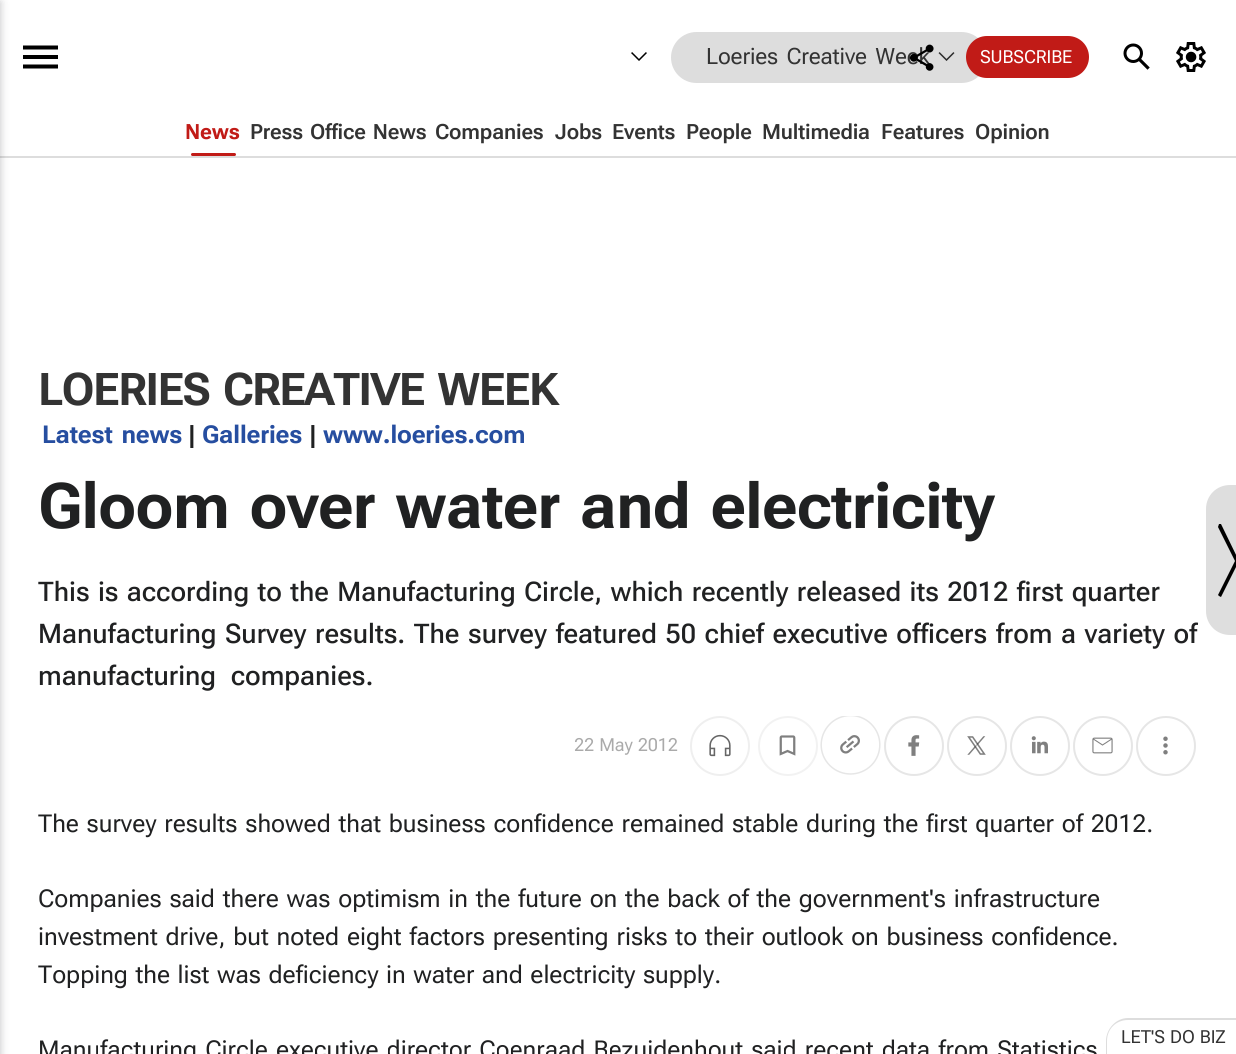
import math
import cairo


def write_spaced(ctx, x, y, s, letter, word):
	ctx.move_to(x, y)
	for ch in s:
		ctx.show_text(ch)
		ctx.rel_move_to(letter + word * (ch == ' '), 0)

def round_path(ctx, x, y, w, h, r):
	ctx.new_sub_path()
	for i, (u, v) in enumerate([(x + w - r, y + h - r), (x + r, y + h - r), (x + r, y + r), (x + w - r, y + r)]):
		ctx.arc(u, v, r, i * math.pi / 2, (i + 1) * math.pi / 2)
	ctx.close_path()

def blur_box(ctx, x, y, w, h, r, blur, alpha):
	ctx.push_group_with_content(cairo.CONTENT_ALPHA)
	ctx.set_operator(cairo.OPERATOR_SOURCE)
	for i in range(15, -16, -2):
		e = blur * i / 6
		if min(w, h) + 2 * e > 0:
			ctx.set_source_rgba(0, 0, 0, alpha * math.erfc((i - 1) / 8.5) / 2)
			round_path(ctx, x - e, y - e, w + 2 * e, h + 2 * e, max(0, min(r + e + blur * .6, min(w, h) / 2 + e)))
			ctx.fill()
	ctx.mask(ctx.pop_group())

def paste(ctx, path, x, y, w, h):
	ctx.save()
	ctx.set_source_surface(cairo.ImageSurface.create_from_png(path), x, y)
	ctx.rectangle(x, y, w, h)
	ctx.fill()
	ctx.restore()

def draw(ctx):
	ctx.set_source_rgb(1, 1, 1)
	ctx.paint()
	ctx.set_source_rgb(0.867, 0.867, 0.867)
	ctx.rectangle(0, 156, 1236, 2)
	ctx.fill()
	ctx.set_source_rgb(0.125, 0.129, 0.141)
	blur_box(ctx, -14, 2, 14, 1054, 0, 4.5, 0.28)
	ctx.set_source_rgb(0, 0, 0)
	ctx.new_path()
	ctx.move_to(23, 68.5)
	ctx.line_to(23, 64.5)
	ctx.line_to(58, 64.5)
	ctx.line_to(58, 68.5)
	ctx.close_path()
	ctx.move_to(23, 59)
	ctx.line_to(23, 55)
	ctx.line_to(58, 55)
	ctx.line_to(58, 59)
	ctx.close_path()
	ctx.move_to(23, 49.5)
	ctx.line_to(23, 45.5)
	ctx.line_to(58, 45.5)
	ctx.line_to(58, 49.5)
	ctx.close_path()
	ctx.fill()
	paste(ctx, 'media/1.png', 631, 52, 16, 9)
	ctx.set_source_rgb(0.867, 0.867, 0.867)
	round_path(ctx, 671, 32, 316, 51, 25.5)
	ctx.fill()
	ctx.select_font_face('Roboto Flex')
	ctx.set_font_size(22.5)
	ctx.set_source_rgb(0.2, 0.2, 0.2)
	write_spaced(ctx, 706, 64, 'Loeries Creative Week', -0.15, 3)
	paste(ctx, 'media/2.png', 938, 52, 17, 9)
	paste(ctx, 'media/3.png', 910, 44, 24, 27)
	ctx.set_source_rgb(0.757, 0.106, 0.09)
	round_path(ctx, 966, 36, 123, 42, 21)
	ctx.fill()
	ctx.set_font_size(18)
	ctx.set_source_rgb(1, 1, 1)
	write_spaced(ctx, 980, 63, 'SUBSCRIBE', -0.15, 0)
	paste(ctx, 'media/4.png', 1123, 43, 27, 27)
	paste(ctx, 'media/5.png', 1176, 42, 30, 30)
	ctx.select_font_face('Roboto Flex', cairo.FONT_SLANT_NORMAL, cairo.FONT_WEIGHT_BOLD)
	ctx.set_font_size(21)
	ctx.set_source_rgb(0.757, 0.106, 0.09)
	write_spaced(ctx, 185, 139, 'News', -0.15, 0)
	round_path(ctx, 191, 153, 45, 3, 1.5)
	ctx.fill()
	ctx.select_font_face('Roboto Flex SemiBold')
	ctx.set_source_rgb(0.2, 0.2, 0.2)
	write_spaced(ctx, 250, 139, 'Press Office News', -0.15, 2)
	for x, y, s in [
		(435, 139, 'Companies'),
		(555, 139, 'Jobs'),
		(612, 139, 'Events'),
		(686, 139, 'People'),
		(762, 139, 'Multimedia'),
		(881, 139, 'Features'),
		(975, 139, 'Opinion'),
	]:
		write_spaced(ctx, x, y, s, -0.15, 0)
	ctx.select_font_face('Roboto Flex', cairo.FONT_SLANT_NORMAL, cairo.FONT_WEIGHT_BOLD)
	ctx.set_font_size(45)
	write_spaced(ctx, 38, 405, 'LOERIES CREATIVE WEEK', -1.5, 4)
	ctx.set_font_size(24.6)
	ctx.set_source_rgb(0.149, 0.306, 0.627)
	write_spaced(ctx, 42, 443, 'Latest news', -0.15, 3)
	ctx.set_source_rgb(0.125, 0.129, 0.133)
	write_spaced(ctx, 188, 443, '|', -0.15, 0)
	ctx.set_source_rgb(0.149, 0.306, 0.627)
	write_spaced(ctx, 202, 443, 'Galleries', -0.15, 0)
	ctx.set_source_rgb(0.125, 0.129, 0.133)
	write_spaced(ctx, 309, 443, '|', -0.15, 0)
	ctx.set_source_rgb(0.149, 0.306, 0.627)
	write_spaced(ctx, 323, 443, 'www.loeries.com', -0.15, 0)
	ctx.set_font_size(63)
	ctx.set_source_rgb(0.125, 0.129, 0.133)
	write_spaced(ctx, 38, 528, 'Gloom over water and electricity', -0.6, 5.5)
	ctx.select_font_face('Roboto Flex Medium')
	ctx.set_font_size(27)
	write_spaced(ctx, 38, 601, 'This is according to the Manufacturing Circle, which recently released its 2012 first quarter', 0, 1.75)
	write_spaced(ctx, 38, 643, 'Manufacturing Survey results. The survey featured 50 chief executive officers from a variety of', 0, 2)
	write_spaced(ctx, 38, 685, 'manufacturing companies.', 0, 8)
	ctx.select_font_face('Roboto Flex')
	ctx.set_font_size(18)
	ctx.set_source_rgb(0.667, 0.667, 0.667)
	write_spaced(ctx, 574, 751, '22 May 2012', -0.15, 1)
	paste(ctx, 'media/6.png', 709, 734, 22, 23)
	ctx.arc(720, 746, 29, 0, 2 * math.pi)
	ctx.set_source_rgb(0.937, 0.937, 0.937)
	ctx.stroke()
	paste(ctx, 'media/7.png', 779, 735, 17, 21)
	ctx.arc(788, 746, 29, 0, 2 * math.pi)
	ctx.set_source_rgb(0.949, 0.949, 0.949)
	ctx.stroke()
	paste(ctx, 'media/8.png', 840, 735, 20, 19)
	ctx.save()
	ctx.rectangle(38, 716, 1161, 60)
	ctx.clip()
	ctx.new_path()
	ctx.move_to(869.5, 767)
	ctx.curve_to(857, 777.5, 838.5, 776, 828, 763.5)
	ctx.curve_to(817.5, 751, 819.5, 733, 831.5, 722.5)
	ctx.curve_to(844, 712, 862.5, 713.5, 873, 726)
	ctx.curve_to(883.5, 738.5, 881.5, 757, 869.5, 767)
	ctx.close_path()
	ctx.set_source_rgb(0.902, 0.902, 0.902)
	ctx.set_line_width(1.5)
	ctx.stroke()
	ctx.restore()
	paste(ctx, 'media/9.png', 908, 735, 12, 21)
	ctx.arc(914, 746, 29, 0, 2 * math.pi)
	ctx.set_source_rgb(0.902, 0.902, 0.902)
	ctx.stroke()
	paste(ctx, 'media/10.png', 967, 736, 19, 19)
	ctx.arc(977, 746, 29, 0, 2 * math.pi)
	ctx.stroke()
	paste(ctx, 'media/11.png', 1031, 736, 17, 18)
	ctx.arc(1040, 746, 29, 0, 2 * math.pi)
	ctx.stroke()
	paste(ctx, 'media/12.png', 1092, 737, 21, 17)
	ctx.arc(1103, 746, 29, 0, 2 * math.pi)
	ctx.stroke()
	paste(ctx, 'media/13.png', 1163, 736, 5, 19)
	ctx.arc(1166, 746, 29, 0, 2 * math.pi)
	ctx.stroke()
	ctx.save()
	ctx.rectangle(38, 806, 1161, 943)
	ctx.clip()
	ctx.set_font_size(24.6)
	ctx.set_source_rgb(0.125, 0.129, 0.133)
	write_spaced(ctx, 38, 832, 'The survey results showed that business confidence remained stable during the first quarter of 2012.', 0, 1.75)
	ctx.restore()
	ctx.set_font_size(24.6)
	ctx.set_source_rgb(0.125, 0.129, 0.133)
	write_spaced(ctx, 38, 907, 'Companies said there was optimism in the future on the back of the government\'s infrastructure', 0, 1.75)
	write_spaced(ctx, 38, 945, 'investment drive, but noted eight factors presenting risks to their outlook on business confidence.', 0, 1.8)
	ctx.save()
	ctx.rectangle(38, 806, 1161, 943)
	ctx.clip()
	write_spaced(ctx, 38, 983, 'Topping the list was deficiency in water and electricity supply.', 0, 1.5)
	ctx.restore()
	write_spaced(ctx, 38, 1058, 'Manufacturing Circle executive director Coenraad Bezuidenhout said recent data from Statistics', 0, 2.1)
	ctx.set_source_rgb(0.871, 0.871, 0.871)
	ctx.new_path()
	ctx.move_to(1230, 485)
	ctx.line_to(1236, 485)
	ctx.line_to(1236, 635)
	ctx.line_to(1230, 635)
	ctx.curve_to(1216.5, 635, 1206, 624.5, 1206, 611)
	ctx.line_to(1206, 509)
	ctx.curve_to(1206, 495.5, 1216.5, 485, 1230, 485)
	ctx.close_path()
	ctx.fill()
	ctx.set_source_rgb(0, 0, 0)
	ctx.new_path()
	ctx.move_to(1221, 524)
	ctx.line_to(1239, 561)
	ctx.line_to(1221, 597)
	ctx.line_to(1219, 596)
	ctx.line_to(1218, 595)
	ctx.line_to(1235, 561)
	ctx.line_to(1218, 527)
	ctx.line_to(1219, 524)
	ctx.close_path()
	ctx.fill()
	ctx.set_source_rgb(0.867, 0.867, 0.867)
	ctx.set_fill_rule(cairo.FILL_RULE_EVEN_ODD)
	ctx.new_path()
	ctx.move_to(1128, 1018)
	ctx.line_to(1236, 1018)
	ctx.line_to(1236, 1054)
	ctx.line_to(1106, 1054)
	ctx.line_to(1106, 1041)
	ctx.curve_to(1106, 1029, 1116, 1018, 1128, 1018)
	ctx.close_path()
	ctx.move_to(1128, 1020)
	ctx.line_to(1236, 1020)
	ctx.line_to(1236, 1054)
	ctx.line_to(1107, 1054)
	ctx.line_to(1107, 1041)
	ctx.curve_to(1107, 1029, 1116, 1020, 1128, 1020)
	ctx.close_path()
	ctx.fill()
	ctx.set_font_size(18)
	ctx.set_source_rgb(0.2, 0.2, 0.2)
	write_spaced(ctx, 1121, 1043, 'LET\'S DO BIZ', -0.15, 1)


surface = cairo.ImageSurface(cairo.FORMAT_RGB24, 1236, 1054)
ctx = cairo.Context(surface)
options = cairo.FontOptions()
options.set_hint_metrics(cairo.HINT_METRICS_OFF)
options.set_hint_style(cairo.HINT_STYLE_NONE)
ctx.set_font_options(options)
ctx.set_miter_limit(4)
draw(ctx)
surface.write_to_png('image.png')
